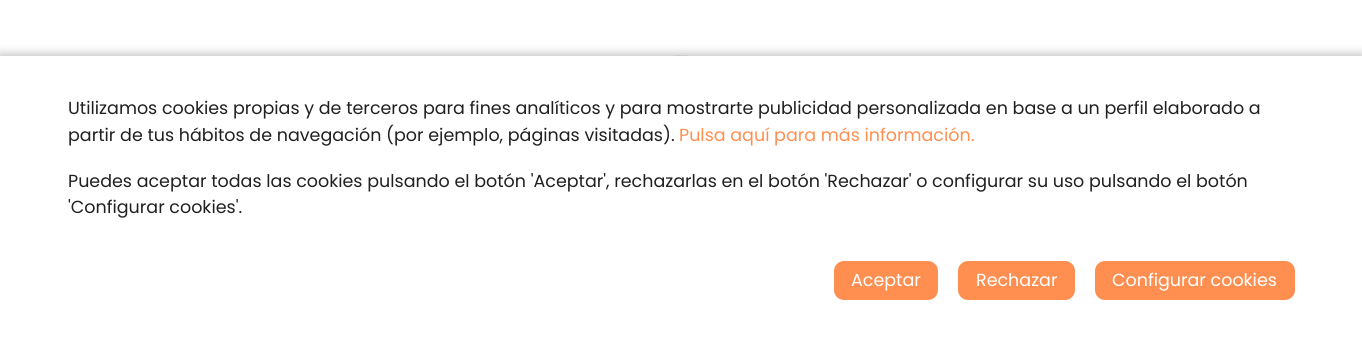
import math
import cairo


def round_path(ctx, x, y, w, h, r):
	ctx.new_sub_path()
	for i, (u, v) in enumerate([(x + w - r, y + h - r), (x + r, y + h - r), (x + r, y + r), (x + w - r, y + r)]):
		ctx.arc(u, v, r, i * math.pi / 2, (i + 1) * math.pi / 2)
	ctx.close_path()

def blur_box(ctx, x, y, w, h, r, blur, alpha):
	ctx.push_group_with_content(cairo.CONTENT_ALPHA)
	ctx.set_operator(cairo.OPERATOR_SOURCE)
	for i in range(15, -16, -2):
		e = blur * i / 6
		if min(w, h) + 2 * e > 0:
			ctx.set_source_rgba(0, 0, 0, alpha * math.erfc((i - 1) / 8.5) / 2)
			round_path(ctx, x - e, y - e, w + 2 * e, h + 2 * e, max(0, min(r + e + blur * .6, min(w, h) / 2 + e)))
			ctx.fill()
	ctx.mask(ctx.pop_group())

def paste(ctx, path, x, y, w, h):
	ctx.save()
	ctx.set_source_surface(cairo.ImageSurface.create_from_png(path), x, y)
	ctx.rectangle(x, y, w, h)
	ctx.fill()
	ctx.restore()

def draw(ctx):
	ctx.set_source_rgb(1, 1, 1)
	ctx.paint()
	paste(ctx, 'media/1.png', 673, 55, 16, 1)
	ctx.set_source_rgb(0, 0, 0)
	blur_box(ctx, 0, 54, 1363, 284, 0, 5, 0.25)
	ctx.set_source_rgb(1, 1, 1)
	ctx.rectangle(0, 56, 1362, 284)
	ctx.fill()
	ctx.select_font_face('Poppins')
	ctx.set_font_size(17.5)
	ctx.set_source_rgb(0.125, 0.125, 0.125)
	ctx.move_to(68, 114)
	ctx.show_text('Utilizamos cookies propias y de terceros para fines analíticos y para mostrarte publicidad personalizada en base a un perfil elaborado a')
	ctx.move_to(68, 141)
	ctx.show_text('partir de tus hábitos de navegación (por ejemplo, páginas visitadas).')
	ctx.set_source_rgb(1, 0.561, 0.318)
	ctx.move_to(679, 141)
	ctx.show_text('Pulsa aquí para más información.')
	ctx.set_source_rgb(0.125, 0.125, 0.125)
	ctx.move_to(68, 187)
	ctx.show_text('Puedes aceptar todas las cookies pulsando el botón \'Aceptar\', rechazarlas en el botón \'Rechazar\' o configurar su uso pulsando el botón')
	ctx.move_to(68, 213)
	ctx.show_text('\'Configurar cookies\'.')
	ctx.set_source_rgb(1, 0.561, 0.318)
	round_path(ctx, 834, 261, 104, 39, 10)
	ctx.fill()
	ctx.set_source_rgb(1, 1, 1)
	ctx.move_to(851, 286)
	ctx.show_text('Aceptar')
	ctx.set_source_rgb(1, 0.561, 0.318)
	round_path(ctx, 958, 261, 117, 39, 10)
	ctx.fill()
	ctx.set_source_rgb(1, 1, 1)
	ctx.move_to(976, 286)
	ctx.show_text('Rechazar')
	ctx.set_source_rgb(1, 0.561, 0.318)
	round_path(ctx, 1095, 261, 200, 39, 10)
	ctx.fill()
	ctx.set_source_rgb(1, 1, 1)
	ctx.move_to(1112, 286)
	ctx.show_text('Configurar cookies')


surface = cairo.ImageSurface(cairo.FORMAT_RGB24, 1362, 340)
ctx = cairo.Context(surface)
options = cairo.FontOptions()
options.set_hint_metrics(cairo.HINT_METRICS_OFF)
options.set_hint_style(cairo.HINT_STYLE_NONE)
ctx.set_font_options(options)
ctx.set_miter_limit(4)
draw(ctx)
surface.write_to_png('image.png')
